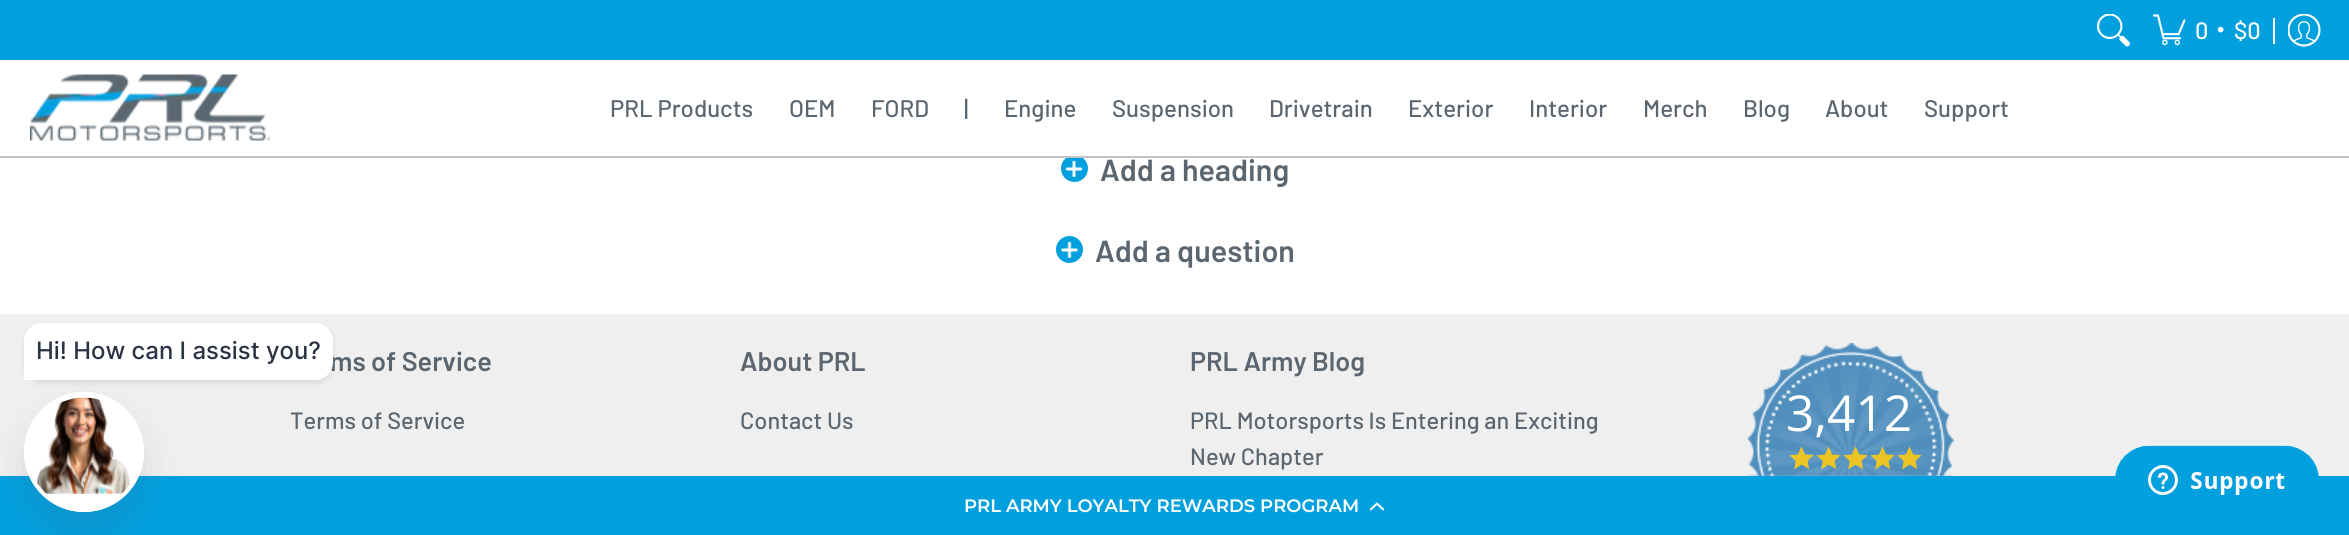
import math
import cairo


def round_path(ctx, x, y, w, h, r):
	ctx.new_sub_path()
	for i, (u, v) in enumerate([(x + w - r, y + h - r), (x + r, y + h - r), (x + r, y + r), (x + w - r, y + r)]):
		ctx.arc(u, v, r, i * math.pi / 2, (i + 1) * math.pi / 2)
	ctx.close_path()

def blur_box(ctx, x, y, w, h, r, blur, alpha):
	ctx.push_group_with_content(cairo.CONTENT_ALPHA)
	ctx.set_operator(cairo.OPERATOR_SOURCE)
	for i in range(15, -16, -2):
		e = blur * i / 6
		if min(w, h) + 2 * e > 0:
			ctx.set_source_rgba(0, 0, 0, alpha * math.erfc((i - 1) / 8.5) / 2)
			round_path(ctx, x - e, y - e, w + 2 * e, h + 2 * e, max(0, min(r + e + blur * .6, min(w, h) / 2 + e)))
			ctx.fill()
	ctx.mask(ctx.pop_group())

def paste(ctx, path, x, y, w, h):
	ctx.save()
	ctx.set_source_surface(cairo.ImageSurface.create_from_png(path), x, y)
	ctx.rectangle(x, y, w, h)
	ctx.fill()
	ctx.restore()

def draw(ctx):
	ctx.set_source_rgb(1, 1, 1)
	ctx.paint()
	ctx.set_source_rgb(0, 0.627, 0.875)
	ctx.arc(1074.5, 168.5, 13.5, 0, 2 * math.pi)
	ctx.fill()
	ctx.set_source_rgb(1, 1, 1)
	ctx.rectangle(1069, 155, 11, 1)
	ctx.fill()
	ctx.set_source_rgb(0, 0.627, 0.875)
	ctx.rectangle(0, 0, 2349, 60)
	ctx.fill()
	paste(ctx, 'media/1.png', 2097, 14, 33, 33)
	paste(ctx, 'media/2.png', 2153, 14, 33, 32)
	ctx.select_font_face('Barlow Medium')
	ctx.set_font_size(23.6)
	ctx.set_source_rgb(1, 1, 1)
	for x, y, s in [
		(2195, 39, '0'),
		(2217, 36, '•'),
		(2234, 39, '$0'),
	]:
		ctx.move_to(x, y)
		ctx.show_text(s)
	ctx.rectangle(2273, 18, 2, 26)
	ctx.fill()
	paste(ctx, 'media/3.png', 2288, 14, 33, 33)
	ctx.set_source_rgb(0.757, 0.773, 0.784)
	ctx.rectangle(0, 156, 2349, 2)
	ctx.fill()
	paste(ctx, 'media/4.png', 30, 74, 240, 67)
	ctx.set_font_size(24)
	ctx.set_source_rgb(0.357, 0.4, 0.439)
	for x, y, s in [
		(610, 117, 'PRL Products'),
		(789, 117, 'OEM'),
		(871, 117, 'FORD'),
		(964, 117, '|'),
		(1004, 117, 'Engine'),
		(1112, 117, 'Suspension'),
		(1269, 117, 'Drivetrain'),
		(1408, 117, 'Exterior'),
		(1529, 117, 'Interior'),
		(1643, 117, 'Merch'),
		(1743, 117, 'Blog'),
		(1825, 117, 'About'),
		(1924, 117, 'Support'),
	]:
		ctx.move_to(x, y)
		ctx.show_text(s)
	paste(ctx, 'media/5.png', 1065, 160, 18, 18)
	ctx.select_font_face('Barlow SemiBold')
	ctx.set_font_size(30.5)
	ctx.move_to(1100, 181)
	ctx.show_text('Add a heading')
	ctx.set_source_rgb(0, 0.627, 0.875)
	ctx.new_path()
	ctx.arc(1069.5, 249.5, 13.5, 0, 2 * math.pi)
	ctx.fill()
	paste(ctx, 'media/6.png', 1060, 241, 19, 18)
	ctx.set_source_rgb(0.357, 0.4, 0.439)
	ctx.move_to(1095, 262)
	ctx.show_text('Add a question')
	ctx.set_source_rgb(0.937, 0.937, 0.937)
	ctx.rectangle(0, 314, 2349, 162)
	ctx.fill()
	ctx.set_source_rgb(0, 0.627, 0.875)
	ctx.rectangle(0, 476, 2349, 59)
	ctx.fill()
	ctx.set_source_rgb(1, 1, 1)
	ctx.arc(84, 452, 60, 0, 2 * math.pi)
	ctx.fill()
	ctx.set_source_rgb(0.329, 0.373, 0.435)
	blur_box(ctx, 24, 326, 309, 57, 18, 3, 0.16)
	ctx.set_font_size(27)
	ctx.set_source_rgb(0.357, 0.4, 0.439)
	ctx.move_to(330, 371)
	ctx.show_text('ms of Service')
	ctx.set_source_rgb(1, 1, 1)
	ctx.new_path()
	ctx.move_to(42, 323)
	ctx.line_to(315, 323)
	ctx.curve_to(325, 323, 333, 331, 333, 341)
	ctx.line_to(333, 362)
	ctx.curve_to(333, 372, 325, 380, 315, 380)
	ctx.line_to(24, 380)
	ctx.line_to(24, 341)
	ctx.curve_to(24, 331, 32, 323, 42, 323)
	ctx.close_path()
	ctx.fill()
	ctx.select_font_face('Inter Medium')
	ctx.set_font_size(24)
	ctx.set_source_rgb(0.173, 0.2, 0.271)
	ctx.move_to(36, 359)
	ctx.show_text('Hi! How can I assist you?')
	ctx.save()
	ctx.set_fill_rule(cairo.FILL_RULE_EVEN_ODD)
	ctx.new_path()
	ctx.move_to(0, 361)
	ctx.line_to(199, 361)
	ctx.line_to(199, 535)
	ctx.line_to(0, 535)
	ctx.close_path()
	ctx.move_to(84, 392)
	ctx.curve_to(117, 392, 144, 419, 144, 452)
	ctx.curve_to(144, 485, 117, 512, 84, 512)
	ctx.curve_to(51, 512, 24, 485, 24, 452)
	ctx.curve_to(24, 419, 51, 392, 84, 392)
	ctx.close_path()
	ctx.clip()
	ctx.set_source_rgb(0.329, 0.373, 0.435)
	blur_box(ctx, 24, 416, 120, 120, 60, 18, 0.16)
	ctx.restore()
	ctx.arc(84, 452, 57.5, 0, 2 * math.pi)
	ctx.set_source_rgb(1, 1, 1)
	ctx.set_line_width(5)
	ctx.stroke()
	paste(ctx, 'media/7.png', 36, 397, 95, 97)
	ctx.select_font_face('Barlow Medium')
	ctx.set_font_size(23.6)
	ctx.set_source_rgb(0.357, 0.4, 0.439)
	ctx.move_to(290, 429)
	ctx.show_text('Terms of Service')
	ctx.select_font_face('Barlow SemiBold')
	ctx.set_font_size(27)
	ctx.move_to(740, 371)
	ctx.show_text('About PRL')
	ctx.select_font_face('Barlow Medium')
	ctx.set_font_size(23.6)
	ctx.move_to(740, 429)
	ctx.show_text('Contact Us')
	ctx.select_font_face('Barlow SemiBold')
	ctx.set_font_size(27)
	ctx.move_to(1190, 371)
	ctx.show_text('PRL Army Blog')
	ctx.select_font_face('Barlow Medium')
	ctx.set_font_size(23.6)
	ctx.move_to(1190, 429)
	ctx.show_text('PRL Motorsports Is Entering an Exciting')
	ctx.move_to(1190, 465)
	ctx.show_text('New Chapter')
	paste(ctx, 'media/8.png', 1747, 343, 208, 133)
	ctx.select_font_face('Open Sans')
	ctx.set_font_size(49.5)
	ctx.set_source_rgb(1, 1, 1)
	ctx.move_to(1786, 431)
	ctx.show_text('3,412')
	paste(ctx, 'media/9.png', 1789, 446, 25, 24)
	paste(ctx, 'media/10.png', 1816, 446, 25, 24)
	paste(ctx, 'media/11.png', 1843, 446, 25, 24)
	paste(ctx, 'media/12.png', 1870, 446, 25, 24)
	paste(ctx, 'media/13.png', 1897, 446, 25, 24)
	paste(ctx, 'media/14.png', 2115, 445, 204, 50)
	ctx.select_font_face('Montserrat SemiBold')
	ctx.set_font_size(18)
	ctx.move_to(964, 512)
	ctx.show_text('PRL ARMY LOYALTY REWARDS PROGRAM')
	paste(ctx, 'media/15.png', 1370, 502, 15, 9)


surface = cairo.ImageSurface(cairo.FORMAT_RGB24, 2349, 535)
ctx = cairo.Context(surface)
options = cairo.FontOptions()
options.set_hint_metrics(cairo.HINT_METRICS_OFF)
options.set_hint_style(cairo.HINT_STYLE_NONE)
ctx.set_font_options(options)
ctx.set_miter_limit(4)
draw(ctx)
surface.write_to_png('image.png')
